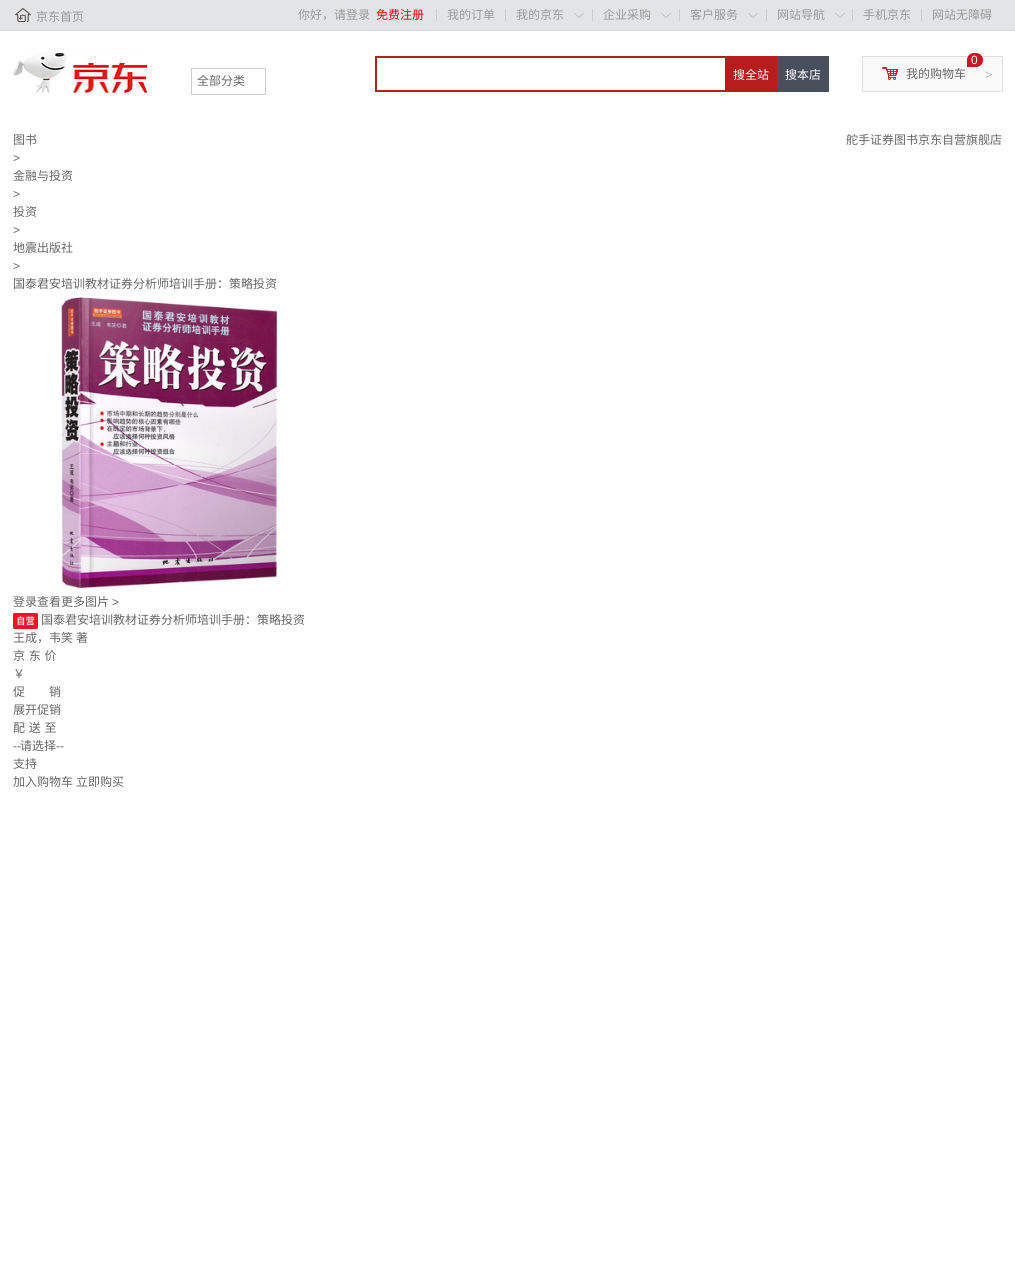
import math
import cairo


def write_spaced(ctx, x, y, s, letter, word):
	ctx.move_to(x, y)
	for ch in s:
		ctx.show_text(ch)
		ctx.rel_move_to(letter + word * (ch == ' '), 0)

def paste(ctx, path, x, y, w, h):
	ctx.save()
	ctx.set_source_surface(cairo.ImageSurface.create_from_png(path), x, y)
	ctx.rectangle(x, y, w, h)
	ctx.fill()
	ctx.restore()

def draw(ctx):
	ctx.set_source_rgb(1, 1, 1)
	ctx.paint()
	ctx.set_source_rgb(0.89, 0.894, 0.898)
	ctx.rectangle(0, 0, 1015, 30)
	ctx.fill()
	ctx.set_source_rgb(0.867, 0.867, 0.867)
	ctx.rectangle(0, 30, 1015, 1)
	ctx.fill()
	paste(ctx, 'media/1.png', 15, 8, 16, 15)
	ctx.select_font_face('Noto Sans CJK SC')
	ctx.set_font_size(12)
	ctx.set_source_rgb(0.6, 0.6, 0.6)
	ctx.move_to(36, 21)
	ctx.show_text('京东首页')
	ctx.move_to(298, 19)
	ctx.show_text('你好，请登录')
	ctx.set_source_rgb(0.953, 0.008, 0.075)
	ctx.move_to(376, 19)
	ctx.show_text('免费注册')
	ctx.set_source_rgb(0.8, 0.8, 0.8)
	ctx.rectangle(436, 9, 1, 12)
	ctx.fill()
	ctx.set_source_rgb(0.6, 0.6, 0.6)
	ctx.move_to(447, 19)
	ctx.show_text('我的订单')
	ctx.set_source_rgb(0.8, 0.8, 0.8)
	ctx.rectangle(505, 9, 1, 12)
	ctx.fill()
	ctx.set_source_rgb(0.6, 0.6, 0.6)
	ctx.move_to(516, 19)
	ctx.show_text('我的京东')
	paste(ctx, 'media/2.png', 574, 13, 10, 5)
	ctx.set_source_rgb(0.8, 0.8, 0.8)
	ctx.rectangle(592, 9, 1, 12)
	ctx.fill()
	ctx.set_source_rgb(0.6, 0.6, 0.6)
	ctx.move_to(603, 19)
	ctx.show_text('企业采购')
	paste(ctx, 'media/2.png', 661, 13, 10, 5)
	ctx.set_source_rgb(0.8, 0.8, 0.8)
	ctx.rectangle(679, 9, 1, 12)
	ctx.fill()
	ctx.set_source_rgb(0.6, 0.6, 0.6)
	ctx.move_to(690, 19)
	ctx.show_text('客户服务')
	paste(ctx, 'media/2.png', 748, 13, 10, 5)
	ctx.set_source_rgb(0.8, 0.8, 0.8)
	ctx.rectangle(766, 9, 1, 12)
	ctx.fill()
	ctx.set_source_rgb(0.6, 0.6, 0.6)
	ctx.move_to(777, 19)
	ctx.show_text('网站导航')
	paste(ctx, 'media/2.png', 835, 13, 10, 5)
	ctx.set_source_rgb(0.8, 0.8, 0.8)
	ctx.rectangle(852, 9, 1, 12)
	ctx.fill()
	ctx.set_source_rgb(0.6, 0.6, 0.6)
	ctx.move_to(863, 19)
	ctx.show_text('手机京东')
	ctx.set_source_rgb(0.8, 0.8, 0.8)
	ctx.rectangle(921, 9, 1, 12)
	ctx.fill()
	ctx.set_source_rgb(0.6, 0.6, 0.6)
	ctx.move_to(932, 19)
	ctx.show_text('网站无障碍')
	paste(ctx, 'media/3.png', 13, 51, 135, 42)
	ctx.rectangle(191.5, 68.5, 74, 26)
	ctx.set_source_rgb(0.8, 0.8, 0.8)
	ctx.set_line_width(1)
	ctx.stroke()
	ctx.set_source_rgb(0.4, 0.4, 0.4)
	ctx.move_to(197, 85)
	ctx.show_text('全部分类')
	ctx.set_source_rgb(0.714, 0.114, 0.114)
	ctx.rectangle(375, 56, 350, 2)
	ctx.rectangle(375, 90, 350, 2)
	ctx.rectangle(375, 56, 2, 36)
	ctx.rectangle(725, 56, 52, 36)
	ctx.fill()
	ctx.set_source_rgb(1, 1, 1)
	ctx.move_to(733, 79)
	ctx.show_text('搜全站')
	ctx.set_source_rgb(0.278, 0.306, 0.361)
	ctx.rectangle(777, 56, 52, 36)
	ctx.fill()
	ctx.set_source_rgb(1, 1, 1)
	ctx.move_to(785, 79)
	ctx.show_text('搜本店')
	ctx.set_source_rgb(0.976, 0.976, 0.976)
	ctx.rectangle(862.5, 56.5, 140, 35)
	ctx.fill_preserve()
	ctx.set_source_rgb(0.875, 0.875, 0.875)
	ctx.stroke()
	ctx.set_source_rgb(0.784, 0.086, 0.137)
	ctx.new_path()
	ctx.move_to(974, 53)
	ctx.line_to(976, 53)
	ctx.curve_to(980, 53, 983, 56, 983, 60)
	ctx.curve_to(983, 64, 980, 67, 976, 67)
	ctx.line_to(967, 67)
	ctx.line_to(967, 60)
	ctx.curve_to(967, 56, 970, 53, 974, 53)
	ctx.close_path()
	ctx.fill()
	ctx.select_font_face('Liberation Sans')
	ctx.set_source_rgb(1, 1, 1)
	ctx.move_to(971, 64)
	ctx.show_text('0')
	paste(ctx, 'media/4.png', 882, 67, 16, 13)
	ctx.select_font_face('Noto Sans CJK SC')
	ctx.set_source_rgb(0.4, 0.4, 0.4)
	ctx.move_to(906, 78)
	ctx.show_text('我的购物车')
	ctx.select_font_face('Liberation Serif')
	ctx.set_font_size(13)
	ctx.set_source_rgb(0.6, 0.6, 0.6)
	ctx.move_to(985, 79)
	ctx.show_text('>')
	ctx.select_font_face('Noto Sans CJK SC')
	ctx.set_font_size(12)
	ctx.set_source_rgb(0.4, 0.4, 0.4)
	ctx.move_to(13, 144)
	ctx.show_text('图书')
	ctx.select_font_face('Liberation Sans')
	ctx.move_to(13, 162)
	ctx.show_text('>')
	ctx.select_font_face('Noto Sans CJK SC')
	ctx.move_to(13, 180)
	ctx.show_text('金融与投资')
	ctx.select_font_face('Liberation Sans')
	ctx.move_to(13, 198)
	ctx.show_text('>')
	ctx.select_font_face('Noto Sans CJK SC')
	ctx.move_to(13, 216)
	ctx.show_text('投资')
	ctx.select_font_face('Liberation Sans')
	ctx.move_to(13, 234)
	ctx.show_text('>')
	ctx.select_font_face('Noto Sans CJK SC')
	ctx.move_to(13, 252)
	ctx.show_text('地震出版社')
	ctx.select_font_face('Liberation Sans')
	ctx.move_to(13, 270)
	ctx.show_text('>')
	ctx.select_font_face('Noto Sans CJK SC')
	ctx.move_to(13, 288)
	ctx.show_text('国泰君安培训教材证券分析师培训手册：策略投资')
	ctx.move_to(846, 144)
	ctx.show_text('舵手证券图书京东自营旗舰店')
	paste(ctx, 'media/5.png', 61, 297, 217, 293)
	ctx.move_to(13, 606)
	ctx.show_text('登录查看更多图片')
	ctx.select_font_face('Liberation Sans')
	ctx.move_to(112, 606)
	ctx.show_text('>')
	paste(ctx, 'media/6.png', 13, 613, 25, 16)
	ctx.select_font_face('Noto Sans CJK SC')
	for x, y, s in [
		(41, 624, '国泰君安培训教材证券分析师培训手册：策略投资'),
		(13, 642, '王成，韦笑'),
		(76, 642, '著'),
	]:
		ctx.move_to(x, y)
		ctx.show_text(s)
	write_spaced(ctx, 13, 660, '京 东 价', 0, 1)
	for x, y, s in [
		(13, 678, '￥'),
		(13, 696, '促　　销'),
		(13, 714, '展开促销'),
	]:
		ctx.move_to(x, y)
		ctx.show_text(s)
	write_spaced(ctx, 13, 732, '配 送 至', 0, 1)
	ctx.select_font_face('Liberation Sans')
	ctx.move_to(13, 750)
	ctx.show_text('--')
	ctx.select_font_face('Noto Sans CJK SC')
	ctx.move_to(20, 750)
	ctx.show_text('请选择')
	ctx.select_font_face('Liberation Sans')
	ctx.move_to(56, 750)
	ctx.show_text('--')
	ctx.select_font_face('Noto Sans CJK SC')
	for x, y, s in [
		(13, 768, '支持'),
		(13, 786, '加入购物车'),
		(76, 786, '立即购买'),
	]:
		ctx.move_to(x, y)
		ctx.show_text(s)


surface = cairo.ImageSurface(cairo.FORMAT_RGB24, 1015, 1273)
ctx = cairo.Context(surface)
options = cairo.FontOptions()
options.set_hint_metrics(cairo.HINT_METRICS_OFF)
options.set_hint_style(cairo.HINT_STYLE_NONE)
ctx.set_font_options(options)
ctx.set_miter_limit(4)
draw(ctx)
surface.write_to_png('image.png')
